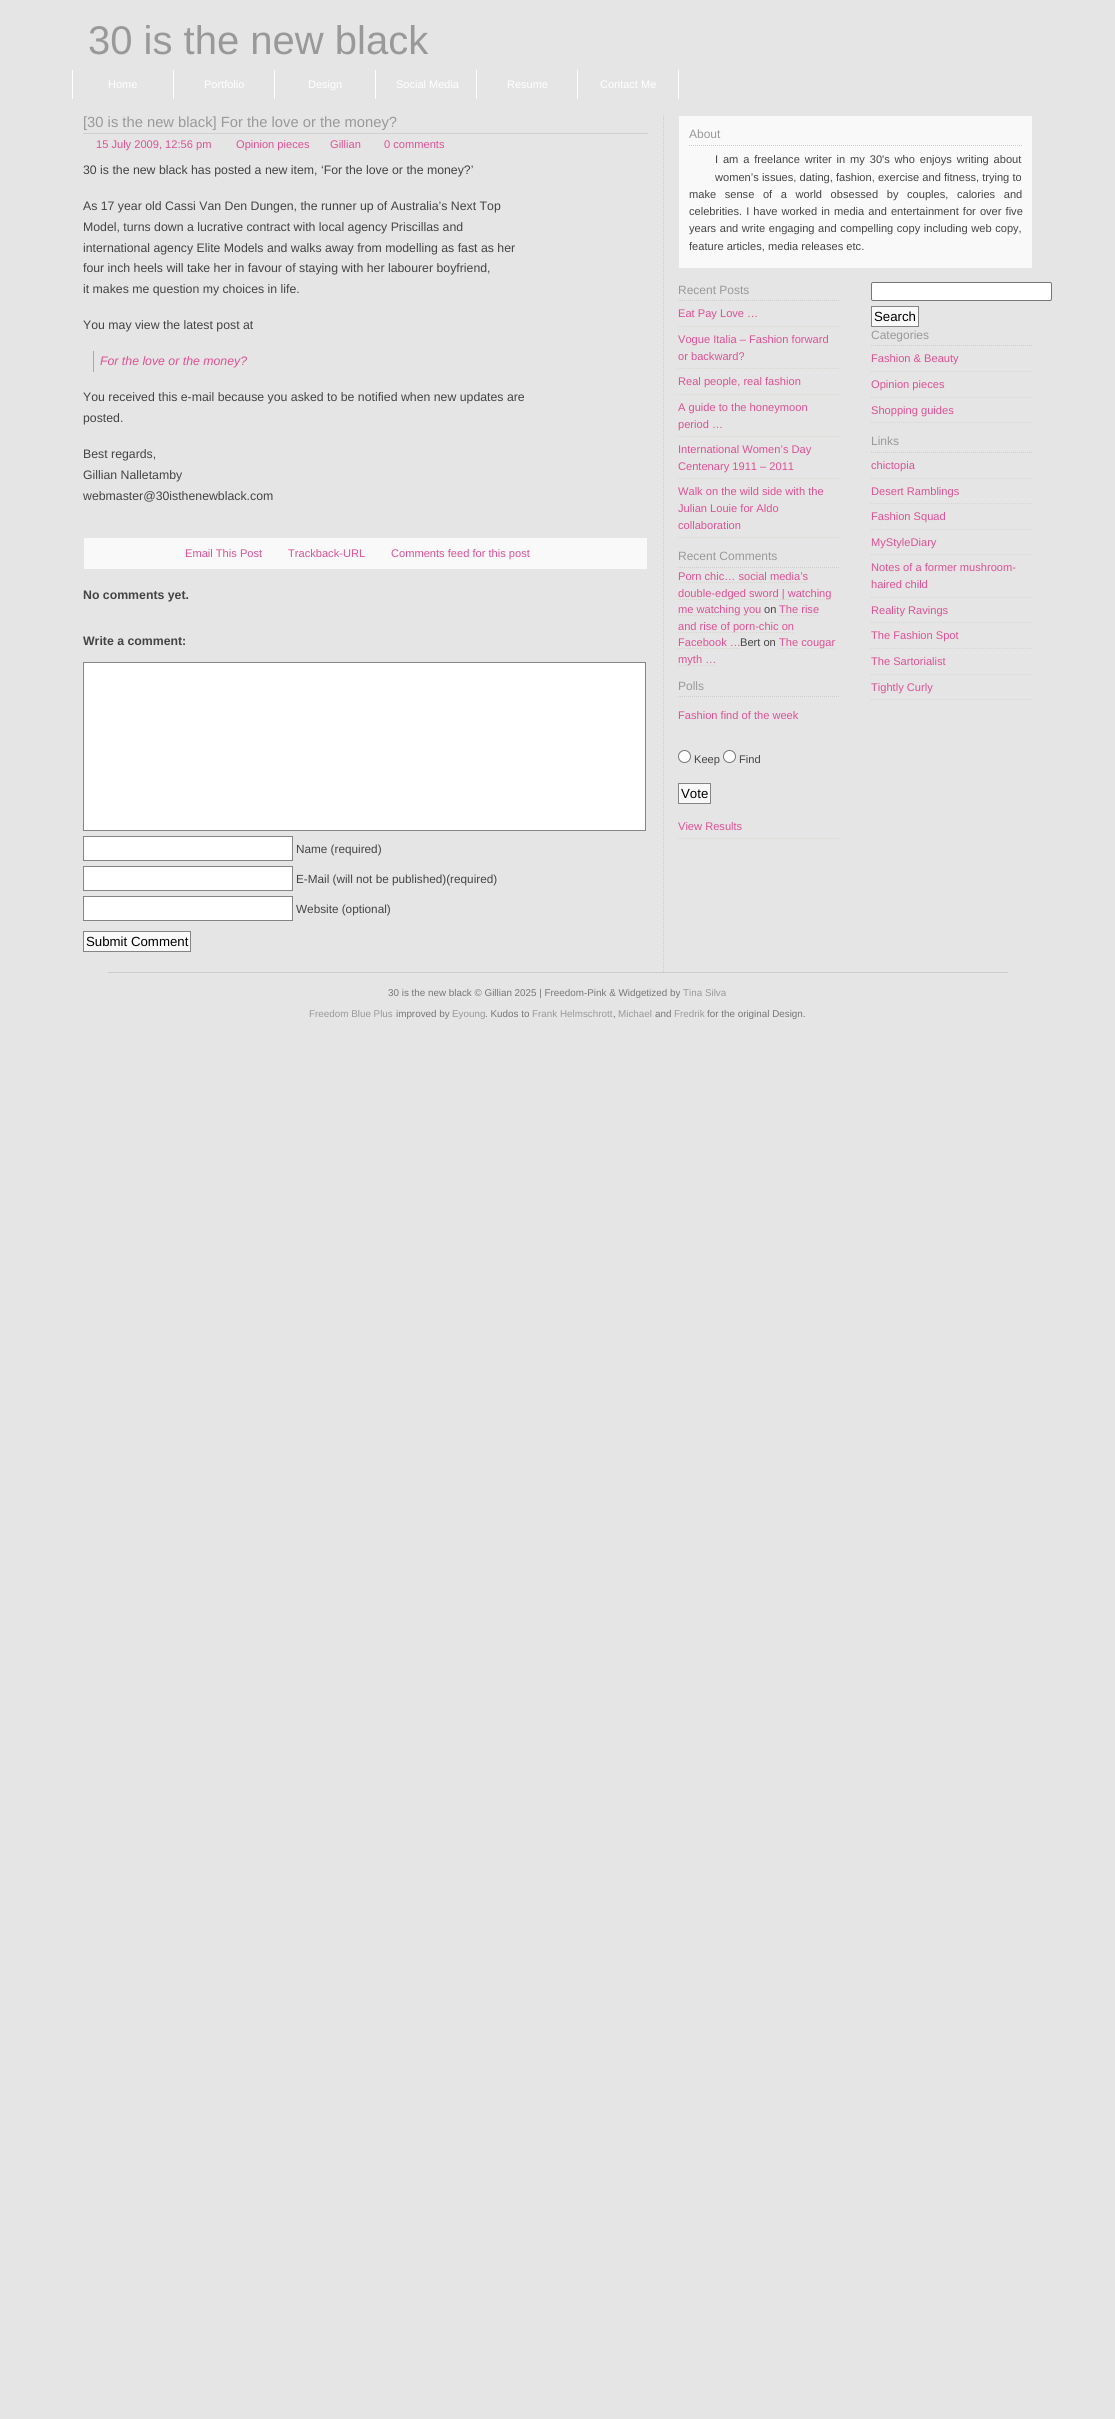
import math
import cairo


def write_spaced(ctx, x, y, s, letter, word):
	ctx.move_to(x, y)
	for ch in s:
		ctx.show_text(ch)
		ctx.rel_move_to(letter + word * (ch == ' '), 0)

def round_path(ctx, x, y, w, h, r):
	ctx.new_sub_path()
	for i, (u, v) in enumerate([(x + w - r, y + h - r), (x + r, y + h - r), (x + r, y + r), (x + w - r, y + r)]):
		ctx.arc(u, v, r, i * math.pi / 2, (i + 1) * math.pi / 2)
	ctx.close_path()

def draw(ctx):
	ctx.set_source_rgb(0.898, 0.898, 0.898)
	ctx.paint()
	ctx.select_font_face('Liberation Sans')
	ctx.set_font_size(40)
	ctx.set_source_rgb(0.6, 0.6, 0.6)
	ctx.move_to(88, 54)
	ctx.show_text('30 is the new black')
	ctx.set_source_rgb(1, 1, 1)
	ctx.rectangle(72, 70, 1, 29)
	ctx.fill()
	ctx.rectangle(173, 70, 1, 29)
	ctx.fill()
	ctx.set_font_size(11)
	ctx.move_to(108, 88)
	ctx.show_text('Home')
	ctx.rectangle(274, 70, 1, 29)
	ctx.fill()
	ctx.move_to(204, 88)
	ctx.show_text('Portfolio')
	ctx.rectangle(375, 70, 1, 29)
	ctx.fill()
	ctx.move_to(308, 88)
	ctx.show_text('Design')
	ctx.rectangle(476, 70, 1, 29)
	ctx.fill()
	ctx.move_to(396, 88)
	ctx.show_text('Social Media')
	ctx.rectangle(577, 70, 1, 29)
	ctx.fill()
	ctx.move_to(507, 88)
	ctx.show_text('Resume')
	ctx.rectangle(678, 70, 1, 29)
	ctx.fill()
	ctx.move_to(600, 88)
	ctx.show_text('Contact Me')
	ctx.new_path()
	ctx.move_to(663.5, 115)
	ctx.line_to(663.5, 972)
	ctx.set_source_rgb(0.804, 0.804, 0.804)
	ctx.set_line_width(1)
	ctx.set_dash([1, 1])
	ctx.stroke()
	ctx.set_source_rgb(0.82, 0.82, 0.82)
	ctx.rectangle(83, 133, 565, 1)
	ctx.fill()
	ctx.set_font_size(14.75)
	ctx.set_source_rgb(0.6, 0.6, 0.6)
	ctx.move_to(83, 127)
	ctx.show_text('[30 is the new black] For the love or the money?')
	ctx.set_font_size(11.1)
	ctx.set_source_rgb(0.867, 0.314, 0.584)
	for x, y, s in [
		(96, 148, '15 July 2009, 12:56 pm'),
		(236, 148, 'Opinion pieces'),
		(330, 148, 'Gillian'),
		(384, 148, '0 comments'),
	]:
		ctx.move_to(x, y)
		ctx.show_text(s)
	ctx.set_font_size(12.3)
	ctx.set_source_rgb(0.267, 0.267, 0.267)
	for x, y, s in [
		(83, 174, '30 is the new black has posted a new item, ‘For the love or the money?’'),
		(83, 210, 'As 17 year old Cassi Van Den Dungen, the runner up of Australia’s Next Top'),
		(83, 231, 'Model, turns down a lucrative contract with local agency Priscillas and'),
		(83, 252, 'international agency Elite Models and walks away from modelling as fast as her'),
		(83, 272, 'four inch heels will take her in favour of staying with her labourer boyfriend,'),
		(83, 293, 'it makes me question my choices in life.'),
		(83, 329, 'You may view the latest post at'),
	]:
		ctx.move_to(x, y)
		ctx.show_text(s)
	ctx.set_source_rgb(0.667, 0.667, 0.667)
	ctx.rectangle(93, 351, 1, 21)
	ctx.fill()
	ctx.select_font_face('Liberation Sans', cairo.FONT_SLANT_ITALIC)
	ctx.set_source_rgb(0.867, 0.314, 0.584)
	ctx.move_to(100, 365)
	ctx.show_text('For the love or the money?')
	ctx.select_font_face('Liberation Sans')
	ctx.set_source_rgb(0.267, 0.267, 0.267)
	for x, y, s in [
		(83, 401, 'You received this e-mail because you asked to be notified when new updates are'),
		(83, 422, 'posted.'),
		(83, 458, 'Best regards,'),
		(83, 479, 'Gillian Nalletamby'),
		(83, 500, 'webmaster@30isthenewblack.com'),
	]:
		ctx.move_to(x, y)
		ctx.show_text(s)
	ctx.set_source_rgb(0.976, 0.976, 0.976)
	ctx.rectangle(84, 538, 563, 31)
	ctx.fill()
	ctx.set_font_size(11.1)
	ctx.set_source_rgb(0.867, 0.314, 0.584)
	for x, y, s in [
		(185, 557, 'Email This Post'),
		(288, 557, 'Trackback-URL'),
		(391, 557, 'Comments feed for this post'),
	]:
		ctx.move_to(x, y)
		ctx.show_text(s)
	ctx.select_font_face('Liberation Sans', cairo.FONT_SLANT_NORMAL, cairo.FONT_WEIGHT_BOLD)
	ctx.set_font_size(12.3)
	ctx.set_source_rgb(0.267, 0.267, 0.267)
	ctx.move_to(83, 599)
	ctx.show_text('No comments yet.')
	ctx.move_to(83, 645)
	ctx.show_text('Write a comment:')
	ctx.set_source_rgb(1, 1, 1)
	ctx.rectangle(83.5, 662.5, 562, 168)
	ctx.fill_preserve()
	ctx.set_source_rgb(0.522, 0.522, 0.522)
	ctx.set_dash([])
	ctx.stroke()
	ctx.set_source_rgb(1, 1, 1)
	ctx.rectangle(83.5, 836.5, 209, 24)
	ctx.fill_preserve()
	ctx.set_source_rgb(0.522, 0.522, 0.522)
	ctx.stroke()
	ctx.select_font_face('Liberation Sans')
	ctx.set_font_size(11.75)
	ctx.set_source_rgb(0.267, 0.267, 0.267)
	ctx.move_to(296, 853)
	ctx.show_text('Name (required)')
	ctx.set_source_rgb(1, 1, 1)
	ctx.rectangle(83.5, 866.5, 209, 24)
	ctx.fill_preserve()
	ctx.set_source_rgb(0.522, 0.522, 0.522)
	ctx.stroke()
	ctx.set_source_rgb(0.267, 0.267, 0.267)
	ctx.move_to(296, 883)
	ctx.show_text('E-Mail (will not be published)(required)')
	ctx.set_source_rgb(1, 1, 1)
	ctx.rectangle(83.5, 896.5, 209, 24)
	ctx.fill_preserve()
	ctx.set_source_rgb(0.522, 0.522, 0.522)
	ctx.stroke()
	ctx.set_source_rgb(0.267, 0.267, 0.267)
	ctx.move_to(296, 913)
	ctx.show_text('Website (optional)')
	ctx.set_source_rgb(0.976, 0.976, 0.976)
	ctx.rectangle(83.5, 931.5, 107, 20)
	ctx.fill_preserve()
	ctx.set_source_rgb(0.522, 0.522, 0.522)
	ctx.stroke()
	ctx.set_font_size(13.25)
	ctx.set_source_rgb(0, 0, 0)
	ctx.move_to(86, 946)
	ctx.show_text('Submit Comment')
	ctx.set_source_rgb(0.976, 0.976, 0.976)
	ctx.rectangle(679, 116, 353, 152)
	ctx.fill()
	ctx.new_path()
	ctx.move_to(689, 145.5)
	ctx.line_to(1022, 145.5)
	ctx.set_source_rgb(0.804, 0.804, 0.804)
	ctx.set_dash([1, 1])
	ctx.stroke()
	ctx.set_font_size(12)
	ctx.set_source_rgb(0.6, 0.6, 0.6)
	ctx.move_to(689, 138)
	ctx.show_text('About')
	ctx.set_font_size(11.1)
	ctx.set_source_rgb(0.267, 0.267, 0.267)
	write_spaced(ctx, 715, 163, 'I am a freelance writer in my 30\'s who enjoys writing about', 0, 1.75)
	ctx.move_to(715, 181)
	ctx.show_text('women’s issues, dating, fashion, exercise and fitness, trying to')
	write_spaced(ctx, 689, 198, 'make sense of a world obsessed by couples, calories and', 0, 5.5)
	write_spaced(ctx, 689, 215, 'celebrities. I have worked in media and entertainment for over five', 0, 1)
	write_spaced(ctx, 689, 232, 'years and write engaging and compelling copy including web copy,', 0, 0.5)
	ctx.move_to(689, 250)
	ctx.show_text('feature articles, media releases etc.')
	ctx.new_path()
	ctx.move_to(678, 300.5)
	ctx.line_to(840, 300.5)
	ctx.set_source_rgb(0.804, 0.804, 0.804)
	ctx.stroke()
	ctx.set_font_size(12)
	ctx.set_source_rgb(0.6, 0.6, 0.6)
	ctx.move_to(678, 294)
	ctx.show_text('Recent Posts')
	ctx.new_path()
	ctx.move_to(678, 326.5)
	ctx.line_to(840, 326.5)
	ctx.set_source_rgb(0.835, 0.843, 0.816)
	ctx.stroke()
	ctx.set_font_size(11.1)
	ctx.set_source_rgb(0.867, 0.314, 0.584)
	ctx.move_to(678, 317)
	ctx.show_text('Eat Pay Love …')
	ctx.new_path()
	ctx.move_to(678, 368.5)
	ctx.line_to(840, 368.5)
	ctx.set_source_rgb(0.835, 0.843, 0.816)
	ctx.stroke()
	ctx.set_source_rgb(0.867, 0.314, 0.584)
	ctx.move_to(678, 343)
	ctx.show_text('Vogue Italia – Fashion forward')
	ctx.move_to(678, 360)
	ctx.show_text('or backward?')
	ctx.new_path()
	ctx.move_to(678, 394.5)
	ctx.line_to(840, 394.5)
	ctx.set_source_rgb(0.835, 0.843, 0.816)
	ctx.stroke()
	ctx.set_source_rgb(0.867, 0.314, 0.584)
	ctx.move_to(678, 385)
	ctx.show_text('Real people, real fashion')
	ctx.new_path()
	ctx.move_to(678, 436.5)
	ctx.line_to(840, 436.5)
	ctx.set_source_rgb(0.835, 0.843, 0.816)
	ctx.stroke()
	ctx.set_source_rgb(0.867, 0.314, 0.584)
	ctx.move_to(678, 411)
	ctx.show_text('A guide to the honeymoon')
	ctx.move_to(678, 428)
	ctx.show_text('period …')
	ctx.new_path()
	ctx.move_to(678, 478.5)
	ctx.line_to(840, 478.5)
	ctx.set_source_rgb(0.835, 0.843, 0.816)
	ctx.stroke()
	ctx.set_source_rgb(0.867, 0.314, 0.584)
	ctx.move_to(678, 453)
	ctx.show_text('International Women’s Day')
	ctx.move_to(678, 470)
	ctx.show_text('Centenary 1911 – 2011')
	ctx.new_path()
	ctx.move_to(678, 537.5)
	ctx.line_to(840, 537.5)
	ctx.set_source_rgb(0.835, 0.843, 0.816)
	ctx.stroke()
	ctx.set_source_rgb(0.867, 0.314, 0.584)
	for x, y, s in [
		(678, 495, 'Walk on the wild side with the'),
		(678, 512, 'Julian Louie for Aldo'),
		(678, 529, 'collaboration'),
	]:
		ctx.move_to(x, y)
		ctx.show_text(s)
	ctx.new_path()
	ctx.move_to(678, 567.5)
	ctx.line_to(840, 567.5)
	ctx.set_source_rgb(0.804, 0.804, 0.804)
	ctx.stroke()
	ctx.set_font_size(12)
	ctx.set_source_rgb(0.6, 0.6, 0.6)
	ctx.move_to(678, 560)
	ctx.show_text('Recent Comments')
	ctx.set_font_size(11.1)
	ctx.set_source_rgb(0.867, 0.314, 0.584)
	ctx.move_to(678, 580)
	ctx.show_text('Porn chic… social media’s')
	ctx.new_path()
	ctx.move_to(678, 582.5)
	ctx.line_to(807, 582.5)
	ctx.set_source_rgb(0.835, 0.843, 0.816)
	ctx.stroke()
	ctx.new_path()
	ctx.move_to(678, 599.5)
	ctx.line_to(831, 599.5)
	ctx.stroke()
	ctx.set_source_rgb(0.867, 0.314, 0.584)
	ctx.move_to(678, 597)
	ctx.show_text('double-edged sword | watching')
	ctx.new_path()
	ctx.move_to(678, 615.5)
	ctx.line_to(761, 615.5)
	ctx.set_source_rgb(0.835, 0.843, 0.816)
	ctx.stroke()
	ctx.set_source_rgb(0.867, 0.314, 0.584)
	ctx.move_to(678, 613)
	ctx.show_text('me watching you')
	ctx.set_source_rgb(0.267, 0.267, 0.267)
	ctx.move_to(764, 613)
	ctx.show_text('on')
	ctx.new_path()
	ctx.move_to(779, 615.5)
	ctx.line_to(819, 615.5)
	ctx.set_source_rgb(0.835, 0.843, 0.816)
	ctx.stroke()
	ctx.set_source_rgb(0.867, 0.314, 0.584)
	ctx.move_to(779, 613)
	ctx.show_text('The rise')
	ctx.new_path()
	ctx.move_to(678, 632.5)
	ctx.line_to(793, 632.5)
	ctx.set_source_rgb(0.835, 0.843, 0.816)
	ctx.stroke()
	ctx.set_source_rgb(0.867, 0.314, 0.584)
	ctx.move_to(678, 630)
	ctx.show_text('and rise of porn-chic on')
	ctx.move_to(678, 646)
	ctx.show_text('Facebook …')
	ctx.new_path()
	ctx.move_to(678, 648.5)
	ctx.line_to(740, 648.5)
	ctx.set_source_rgb(0.835, 0.843, 0.816)
	ctx.stroke()
	ctx.set_source_rgb(0.267, 0.267, 0.267)
	ctx.move_to(740, 646)
	ctx.show_text('Bert on')
	ctx.new_path()
	ctx.move_to(779, 648.5)
	ctx.line_to(835, 648.5)
	ctx.set_source_rgb(0.835, 0.843, 0.816)
	ctx.stroke()
	ctx.set_source_rgb(0.867, 0.314, 0.584)
	ctx.move_to(779, 646)
	ctx.show_text('The cougar')
	ctx.new_path()
	ctx.move_to(678, 665.5)
	ctx.line_to(716, 665.5)
	ctx.set_source_rgb(0.835, 0.843, 0.816)
	ctx.stroke()
	ctx.set_source_rgb(0.867, 0.314, 0.584)
	ctx.move_to(678, 663)
	ctx.show_text('myth …')
	ctx.new_path()
	ctx.move_to(678, 696.5)
	ctx.line_to(840, 696.5)
	ctx.set_source_rgb(0.804, 0.804, 0.804)
	ctx.stroke()
	ctx.set_font_size(12)
	ctx.set_source_rgb(0.6, 0.6, 0.6)
	ctx.move_to(678, 690)
	ctx.show_text('Polls')
	ctx.set_font_size(11.1)
	ctx.set_source_rgb(0.867, 0.314, 0.584)
	ctx.move_to(678, 719)
	ctx.show_text('Fashion find of the week')
	ctx.set_source_rgb(1, 1, 1)
	ctx.new_path()
	ctx.arc(684.5, 756.5, 6, 0, 2 * math.pi)
	ctx.fill_preserve()
	ctx.set_source_rgb(0.463, 0.463, 0.463)
	ctx.set_dash([])
	ctx.stroke()
	ctx.set_source_rgb(0.267, 0.267, 0.267)
	ctx.move_to(694, 763)
	ctx.show_text('Keep')
	ctx.set_source_rgb(1, 1, 1)
	ctx.new_path()
	ctx.arc(729.5, 756.5, 6, 0, 2 * math.pi)
	ctx.fill_preserve()
	ctx.set_source_rgb(0.463, 0.463, 0.463)
	ctx.stroke()
	ctx.set_source_rgb(0.267, 0.267, 0.267)
	ctx.move_to(739, 763)
	ctx.show_text('Find')
	ctx.set_source_rgb(0.976, 0.976, 0.976)
	ctx.rectangle(678.5, 783.5, 32, 20)
	ctx.fill_preserve()
	ctx.set_source_rgb(0.522, 0.522, 0.522)
	ctx.stroke()
	ctx.set_font_size(13.25)
	ctx.set_source_rgb(0, 0, 0)
	ctx.move_to(681, 798)
	ctx.show_text('Vote')
	ctx.new_path()
	ctx.move_to(678, 838.5)
	ctx.line_to(840, 838.5)
	ctx.set_source_rgb(0.835, 0.843, 0.816)
	ctx.set_dash([1, 1])
	ctx.stroke()
	ctx.set_font_size(11.1)
	ctx.set_source_rgb(0.867, 0.314, 0.584)
	ctx.move_to(678, 830)
	ctx.show_text('View Results')
	ctx.set_source_rgb(1, 1, 1)
	round_path(ctx, 871.5, 282.5, 180, 18, 1.5)
	ctx.fill_preserve()
	ctx.set_source_rgb(0.463, 0.463, 0.463)
	ctx.set_dash([])
	ctx.stroke()
	ctx.set_source_rgb(0.976, 0.976, 0.976)
	ctx.rectangle(871.5, 306.5, 47, 20)
	ctx.fill_preserve()
	ctx.set_source_rgb(0.522, 0.522, 0.522)
	ctx.stroke()
	ctx.set_font_size(13.25)
	ctx.set_source_rgb(0, 0, 0)
	ctx.move_to(874, 321)
	ctx.show_text('Search')
	ctx.new_path()
	ctx.move_to(871, 345.5)
	ctx.line_to(1033, 345.5)
	ctx.set_source_rgb(0.804, 0.804, 0.804)
	ctx.set_dash([1, 1])
	ctx.stroke()
	ctx.set_font_size(12)
	ctx.set_source_rgb(0.6, 0.6, 0.6)
	ctx.move_to(871, 339)
	ctx.show_text('Categories')
	ctx.new_path()
	ctx.move_to(871, 371.5)
	ctx.line_to(1033, 371.5)
	ctx.set_source_rgb(0.835, 0.843, 0.816)
	ctx.stroke()
	ctx.set_font_size(11.1)
	ctx.set_source_rgb(0.867, 0.314, 0.584)
	ctx.move_to(871, 362)
	ctx.show_text('Fashion & Beauty')
	ctx.new_path()
	ctx.move_to(871, 397.5)
	ctx.line_to(1033, 397.5)
	ctx.set_source_rgb(0.835, 0.843, 0.816)
	ctx.stroke()
	ctx.set_source_rgb(0.867, 0.314, 0.584)
	ctx.move_to(871, 388)
	ctx.show_text('Opinion pieces')
	ctx.new_path()
	ctx.move_to(871, 422.5)
	ctx.line_to(1033, 422.5)
	ctx.set_source_rgb(0.835, 0.843, 0.816)
	ctx.stroke()
	ctx.set_source_rgb(0.867, 0.314, 0.584)
	ctx.move_to(871, 414)
	ctx.show_text('Shopping guides')
	ctx.new_path()
	ctx.move_to(871, 452.5)
	ctx.line_to(1033, 452.5)
	ctx.set_source_rgb(0.804, 0.804, 0.804)
	ctx.stroke()
	ctx.set_font_size(12)
	ctx.set_source_rgb(0.6, 0.6, 0.6)
	ctx.move_to(871, 445)
	ctx.show_text('Links')
	ctx.new_path()
	ctx.move_to(871, 478.5)
	ctx.line_to(1033, 478.5)
	ctx.set_source_rgb(0.835, 0.843, 0.816)
	ctx.stroke()
	ctx.set_font_size(11.1)
	ctx.set_source_rgb(0.867, 0.314, 0.584)
	ctx.move_to(871, 469)
	ctx.show_text('chictopia')
	ctx.new_path()
	ctx.move_to(871, 503.5)
	ctx.line_to(1033, 503.5)
	ctx.set_source_rgb(0.835, 0.843, 0.816)
	ctx.stroke()
	ctx.set_source_rgb(0.867, 0.314, 0.584)
	ctx.move_to(871, 495)
	ctx.show_text('Desert Ramblings')
	ctx.new_path()
	ctx.move_to(871, 529.5)
	ctx.line_to(1033, 529.5)
	ctx.set_source_rgb(0.835, 0.843, 0.816)
	ctx.stroke()
	ctx.set_source_rgb(0.867, 0.314, 0.584)
	ctx.move_to(871, 520)
	ctx.show_text('Fashion Squad')
	ctx.new_path()
	ctx.move_to(871, 554.5)
	ctx.line_to(1033, 554.5)
	ctx.set_source_rgb(0.835, 0.843, 0.816)
	ctx.stroke()
	ctx.set_source_rgb(0.867, 0.314, 0.584)
	ctx.move_to(871, 546)
	ctx.show_text('MyStyleDiary')
	ctx.new_path()
	ctx.move_to(871, 597.5)
	ctx.line_to(1033, 597.5)
	ctx.set_source_rgb(0.835, 0.843, 0.816)
	ctx.stroke()
	ctx.set_source_rgb(0.867, 0.314, 0.584)
	ctx.move_to(871, 571)
	ctx.show_text('Notes of a former mushroom-')
	ctx.move_to(871, 588)
	ctx.show_text('haired child')
	ctx.new_path()
	ctx.move_to(871, 622.5)
	ctx.line_to(1033, 622.5)
	ctx.set_source_rgb(0.835, 0.843, 0.816)
	ctx.stroke()
	ctx.set_source_rgb(0.867, 0.314, 0.584)
	ctx.move_to(871, 614)
	ctx.show_text('Reality Ravings')
	ctx.new_path()
	ctx.move_to(871, 648.5)
	ctx.line_to(1033, 648.5)
	ctx.set_source_rgb(0.835, 0.843, 0.816)
	ctx.stroke()
	ctx.set_source_rgb(0.867, 0.314, 0.584)
	ctx.move_to(871, 639)
	ctx.show_text('The Fashion Spot')
	ctx.new_path()
	ctx.move_to(871, 674.5)
	ctx.line_to(1033, 674.5)
	ctx.set_source_rgb(0.835, 0.843, 0.816)
	ctx.stroke()
	ctx.set_source_rgb(0.867, 0.314, 0.584)
	ctx.move_to(871, 665)
	ctx.show_text('The Sartorialist')
	ctx.new_path()
	ctx.move_to(871, 699.5)
	ctx.line_to(1033, 699.5)
	ctx.set_source_rgb(0.835, 0.843, 0.816)
	ctx.stroke()
	ctx.set_source_rgb(0.867, 0.314, 0.584)
	ctx.move_to(871, 691)
	ctx.show_text('Tightly Curly')
	ctx.set_source_rgb(0.8, 0.8, 0.8)
	ctx.rectangle(108, 972, 900, 1)
	ctx.fill()
	ctx.set_font_size(9.85)
	ctx.set_source_rgb(0.467, 0.467, 0.467)
	ctx.move_to(388, 996)
	ctx.show_text('30 is the new black © Gillian 2025 | Freedom-Pink & Widgetized by')
	ctx.set_source_rgb(0.6, 0.6, 0.6)
	ctx.move_to(683, 996)
	ctx.show_text('Tina Silva')
	ctx.move_to(309, 1017)
	ctx.show_text('Freedom Blue Plus')
	ctx.set_source_rgb(0.467, 0.467, 0.467)
	ctx.move_to(396, 1017)
	ctx.show_text('improved by')
	ctx.set_source_rgb(0.6, 0.6, 0.6)
	ctx.move_to(452, 1017)
	ctx.show_text('Eyoung')
	ctx.set_source_rgb(0.467, 0.467, 0.467)
	ctx.move_to(485, 1017)
	ctx.show_text('. Kudos to')
	ctx.set_source_rgb(0.6, 0.6, 0.6)
	ctx.move_to(532, 1017)
	ctx.show_text('Frank Helmschrott')
	ctx.set_source_rgb(0.467, 0.467, 0.467)
	ctx.move_to(613, 1017)
	ctx.show_text(',')
	ctx.set_source_rgb(0.6, 0.6, 0.6)
	ctx.move_to(618, 1017)
	ctx.show_text('Michael')
	ctx.set_source_rgb(0.467, 0.467, 0.467)
	ctx.move_to(655, 1017)
	ctx.show_text('and')
	ctx.set_source_rgb(0.6, 0.6, 0.6)
	ctx.move_to(674, 1017)
	ctx.show_text('Fredrik')
	ctx.set_source_rgb(0.467, 0.467, 0.467)
	ctx.move_to(707, 1017)
	ctx.show_text('for the original Design.')


surface = cairo.ImageSurface(cairo.FORMAT_RGB24, 1115, 2419)
ctx = cairo.Context(surface)
options = cairo.FontOptions()
options.set_hint_metrics(cairo.HINT_METRICS_OFF)
options.set_hint_style(cairo.HINT_STYLE_NONE)
ctx.set_font_options(options)
ctx.set_miter_limit(4)
draw(ctx)
surface.write_to_png('image.png')
